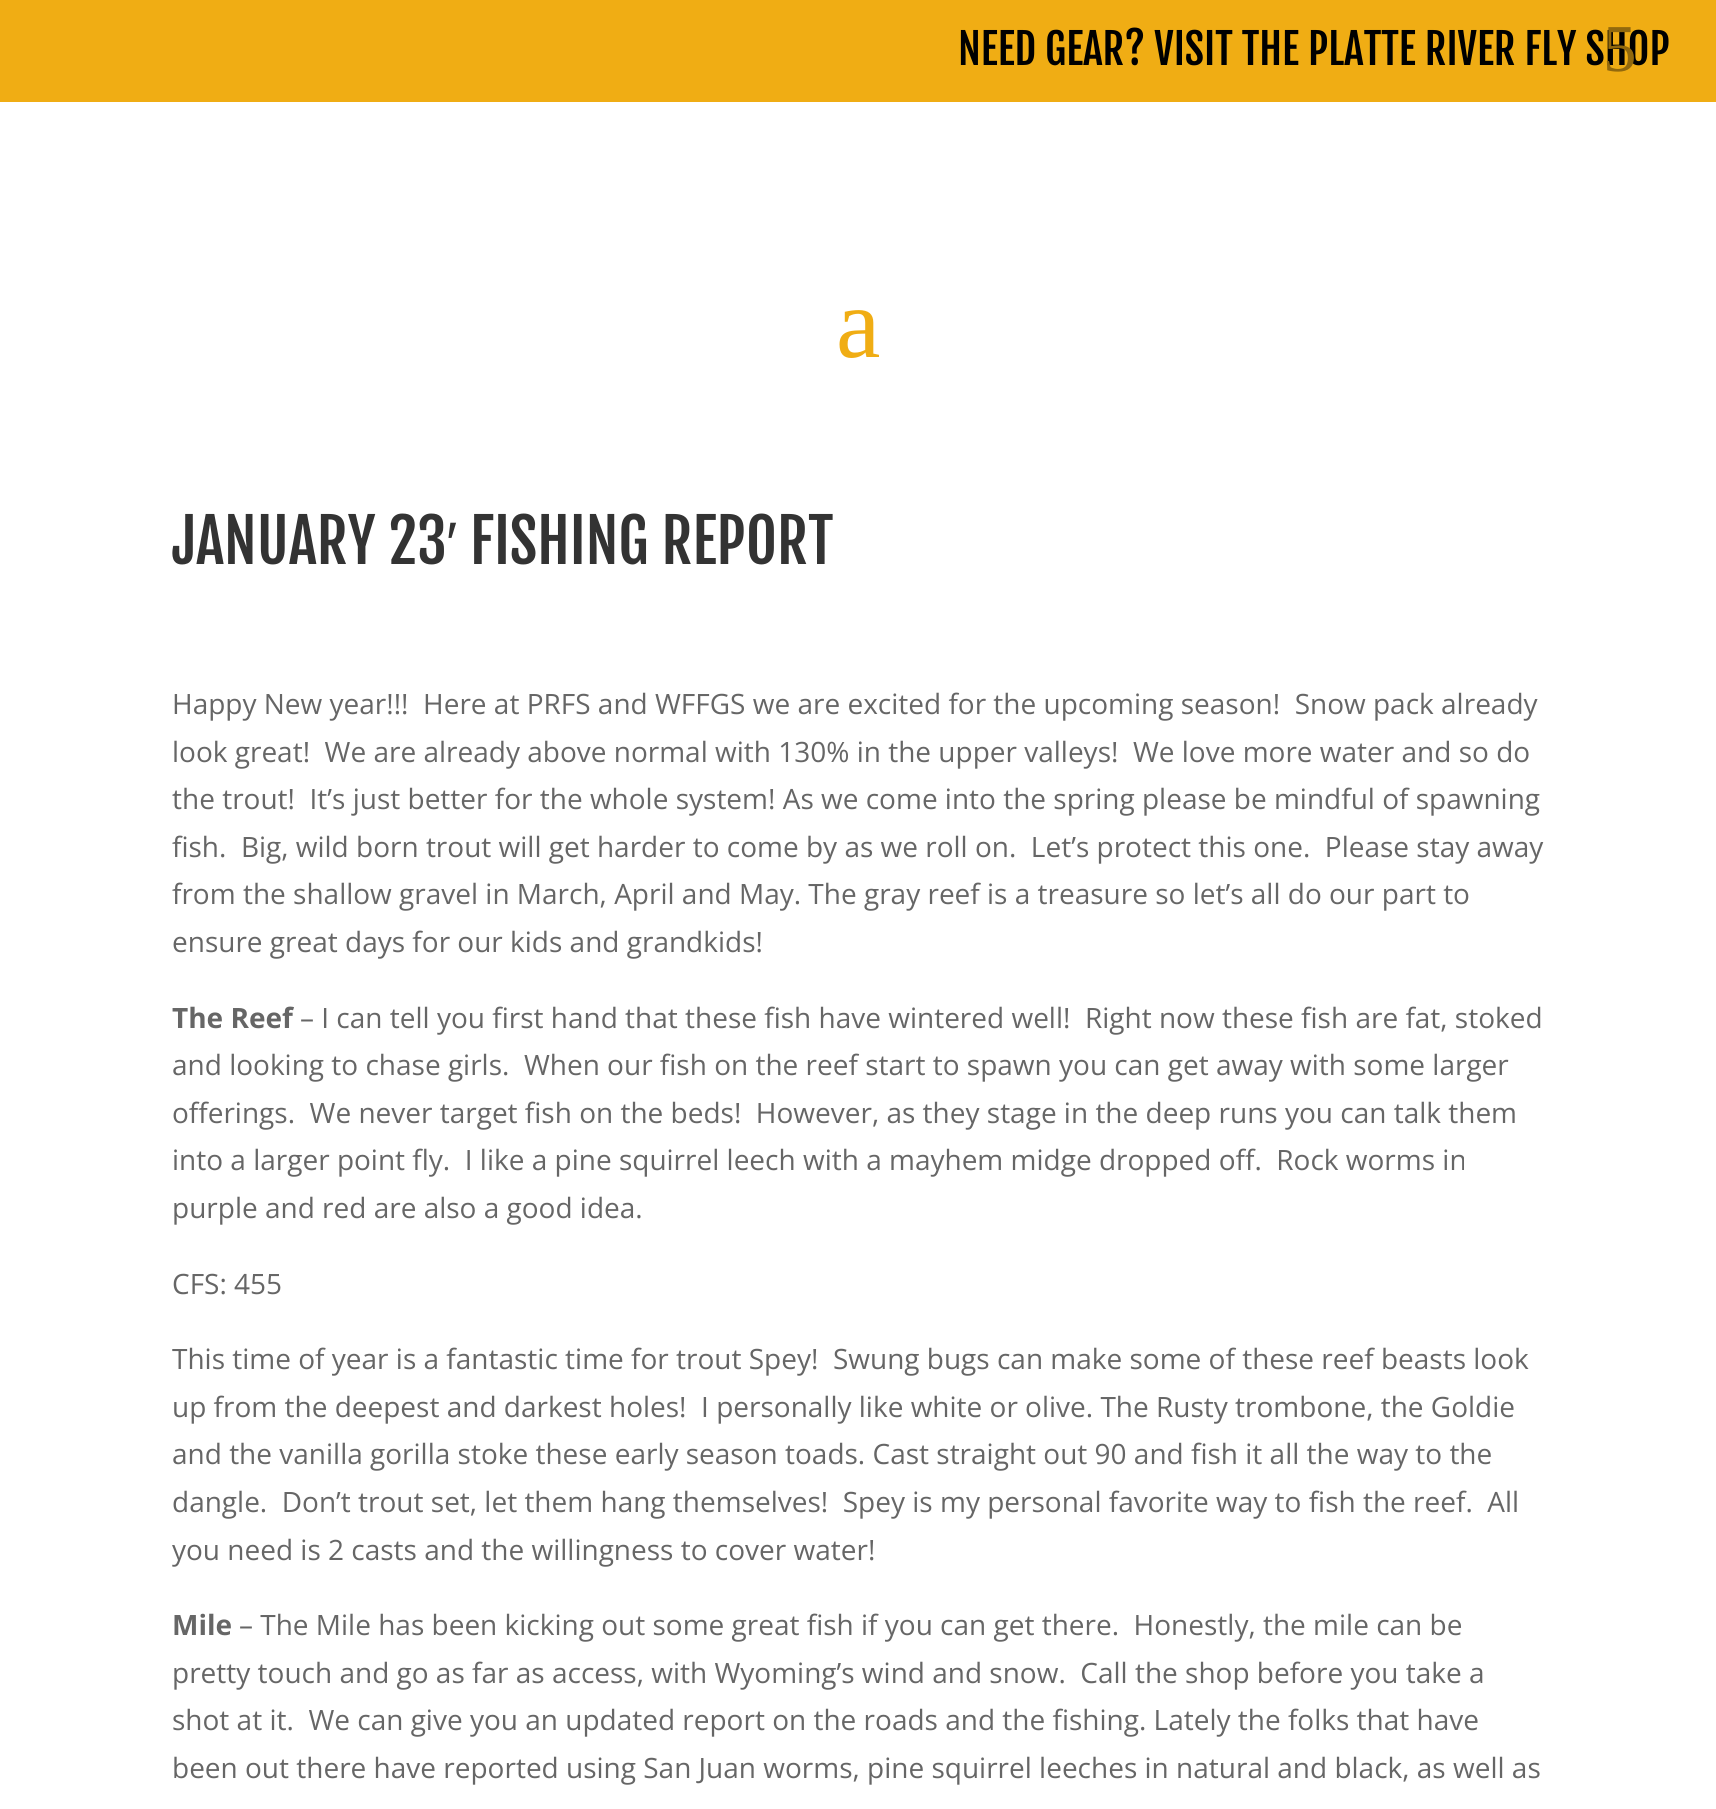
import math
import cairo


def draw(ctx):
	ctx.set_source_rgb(1, 1, 1)
	ctx.paint()
	ctx.set_source_rgb(0.941, 0.678, 0.082)
	ctx.rectangle(0, 0, 1716, 102)
	ctx.fill()
	ctx.select_font_face('Fjalla One')
	ctx.set_font_size(42)
	ctx.set_source_rgb(0, 0, 0)
	ctx.move_to(958, 65)
	ctx.show_text('NEED GEAR? VISIT THE PLATTE RIVER FLY SHOP')
	ctx.select_font_face('Liberation Serif')
	ctx.set_font_size(67)
	ctx.set_source_rgb(0.573, 0.412, 0.051)
	ctx.move_to(1603, 71)
	ctx.show_text('5')
	ctx.set_font_size(100)
	ctx.set_source_rgb(0.941, 0.678, 0.082)
	ctx.move_to(836, 357)
	ctx.show_text('a')
	ctx.select_font_face('Fjalla One')
	ctx.set_font_size(60)
	ctx.set_source_rgb(0.2, 0.2, 0.2)
	ctx.move_to(172, 564)
	ctx.show_text('JANUARY 23')
	ctx.select_font_face('Liberation Sans')
	ctx.move_to(446, 564)
	ctx.show_text('′')
	ctx.select_font_face('Fjalla One')
	ctx.move_to(470, 564)
	ctx.show_text('FISHING REPORT')
	ctx.select_font_face('Open Sans')
	ctx.set_font_size(28)
	ctx.set_source_rgb(0.4, 0.4, 0.4)
	for x, y, s in [
		(172, 714, 'Happy New year!!!  Here at PRFS and WFFGS we are excited for the upcoming season!  Snow pack already'),
		(172, 762, 'look great!  We are already above normal with 130% in the upper valleys!  We love more water and so do'),
		(172, 809, 'the trout!  It’s just better for the whole system! As we come into the spring please be mindful of spawning'),
		(172, 857, 'fish.  Big, wild born trout will get harder to come by as we roll on.  Let’s protect this one.  Please stay away'),
		(172, 904, 'from the shallow gravel in March, April and May. The gray reef is a treasure so let’s all do our part to'),
		(172, 952, 'ensure great days for our kids and grandkids!'),
	]:
		ctx.move_to(x, y)
		ctx.show_text(s)
	ctx.select_font_face('Open Sans', cairo.FONT_SLANT_NORMAL, cairo.FONT_WEIGHT_BOLD)
	ctx.move_to(172, 1028)
	ctx.show_text('The Reef')
	ctx.select_font_face('Open Sans')
	for x, y, s in [
		(300, 1028, '– I can tell you first hand that these fish have wintered well!  Right now these fish are fat, stoked'),
		(172, 1075, 'and looking to chase girls.  When our fish on the reef start to spawn you can get away with some larger'),
		(172, 1123, 'offerings.  We never target fish on the beds!  However, as they stage in the deep runs you can talk them'),
		(172, 1170, 'into a larger point fly.  I like a pine squirrel leech with a mayhem midge dropped off.  Rock worms in'),
		(172, 1218, 'purple and red are also a good idea.'),
		(172, 1294, 'CFS: 455'),
		(172, 1369, 'This time of year is a fantastic time for trout Spey!  Swung bugs can make some of these reef beasts look'),
		(172, 1417, 'up from the deepest and darkest holes!  I personally like white or olive. The Rusty trombone, the Goldie'),
		(172, 1464, 'and the vanilla gorilla stoke these early season toads. Cast straight out 90 and fish it all the way to the'),
		(172, 1512, 'dangle.  Don’t trout set, let them hang themselves!  Spey is my personal favorite way to fish the reef.  All'),
		(172, 1560, 'you need is 2 casts and the willingness to cover water!'),
	]:
		ctx.move_to(x, y)
		ctx.show_text(s)
	ctx.select_font_face('Open Sans', cairo.FONT_SLANT_NORMAL, cairo.FONT_WEIGHT_BOLD)
	ctx.move_to(172, 1635)
	ctx.show_text('Mile')
	ctx.select_font_face('Open Sans')
	for x, y, s in [
		(239, 1635, '– The Mile has been kicking out some great fish if you can get there.  Honestly, the mile can be'),
		(172, 1683, 'pretty touch and go as far as access, with Wyoming’s wind and snow.  Call the shop before you take a'),
		(172, 1730, 'shot at it.  We can give you an updated report on the roads and the fishing. Lately the folks that have'),
		(172, 1778, 'been out there have reported using San Juan worms, pine squirrel leeches in natural and black, as well as'),
	]:
		ctx.move_to(x, y)
		ctx.show_text(s)


surface = cairo.ImageSurface(cairo.FORMAT_RGB24, 1716, 1809)
ctx = cairo.Context(surface)
options = cairo.FontOptions()
options.set_hint_metrics(cairo.HINT_METRICS_OFF)
options.set_hint_style(cairo.HINT_STYLE_NONE)
ctx.set_font_options(options)
ctx.set_miter_limit(4)
draw(ctx)
surface.write_to_png('image.png')
